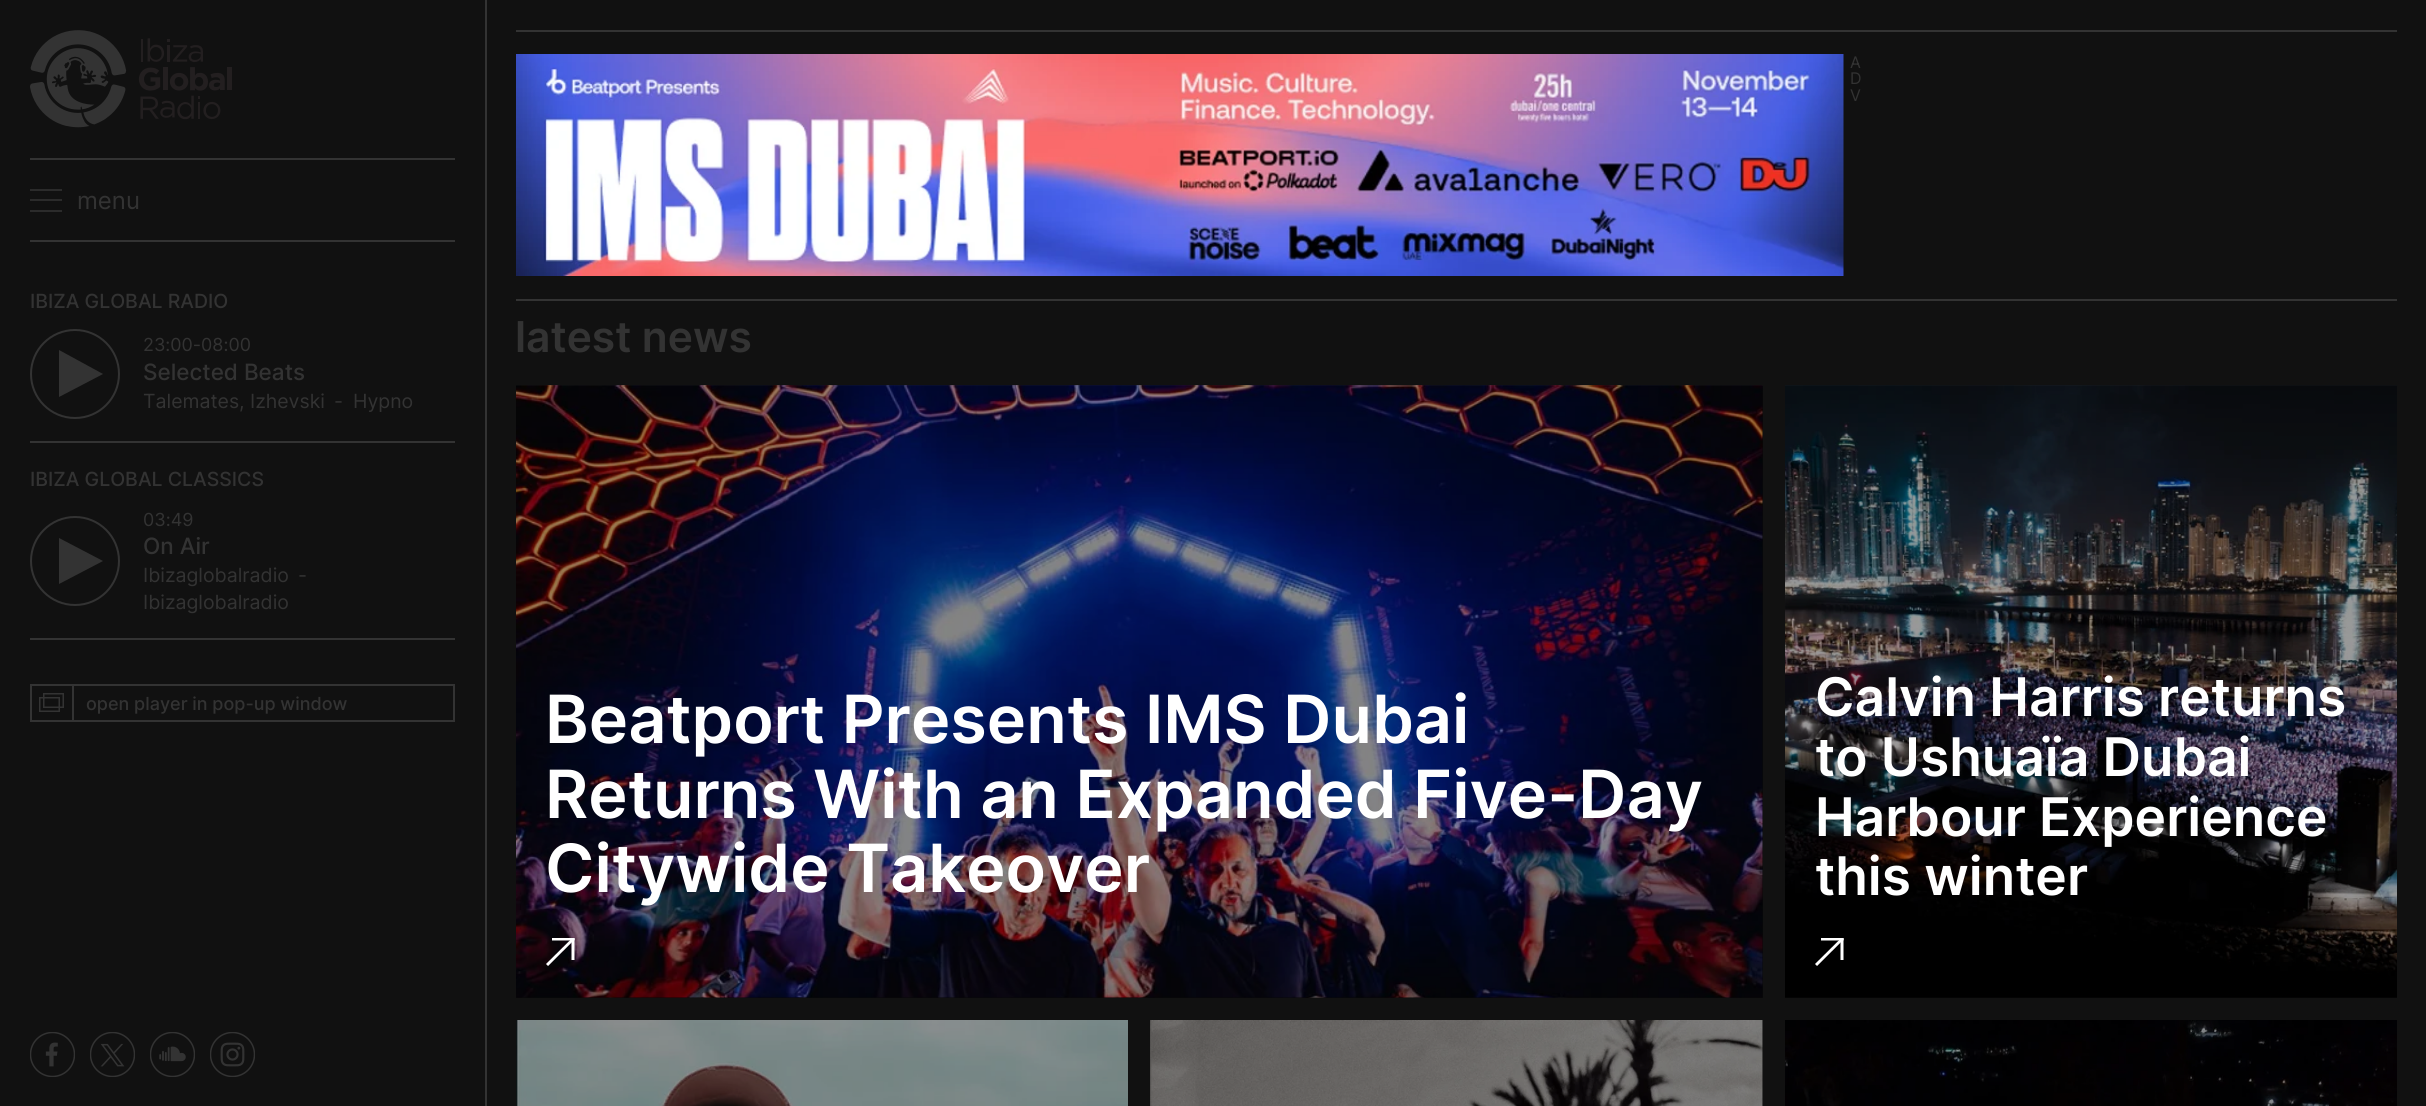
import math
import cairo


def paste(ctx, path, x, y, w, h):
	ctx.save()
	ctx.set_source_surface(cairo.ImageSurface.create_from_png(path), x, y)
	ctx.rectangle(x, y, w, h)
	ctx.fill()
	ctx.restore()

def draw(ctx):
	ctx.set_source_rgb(0.067, 0.067, 0.067)
	ctx.paint()
	ctx.set_source_rgb(0.039, 0.039, 0.039)
	ctx.rectangle(1762, 1020, 1, 86)
	ctx.rectangle(1785, 997, 612, 1)
	ctx.rectangle(516, 386, 1247, 612)
	ctx.fill()
	ctx.set_source_rgb(0.2, 0.2, 0.2)
	ctx.rectangle(485, 0, 2, 1106)
	ctx.fill()
	paste(ctx, 'media/1.png', 30, 30, 202, 98)
	ctx.rectangle(30, 158, 425, 2)
	ctx.rectangle(30, 240, 425, 2)
	ctx.fill()
	ctx.set_source_rgb(0.169, 0.169, 0.169)
	ctx.rectangle(30, 189, 32, 2)
	ctx.rectangle(30, 199, 32, 2)
	ctx.rectangle(30, 210, 32, 2)
	ctx.fill()
	ctx.select_font_face('Inter')
	ctx.set_font_size(24)
	ctx.set_source_rgb(0.2, 0.2, 0.2)
	ctx.move_to(77, 209)
	ctx.show_text('menu')
	ctx.rectangle(30, 441, 425, 2)
	ctx.fill()
	ctx.select_font_face('Inter Medium')
	ctx.set_font_size(19.5)
	ctx.move_to(30, 308)
	ctx.show_text('IBIZA GLOBAL RADIO')
	ctx.new_path()
	ctx.arc(75, 374, 44, 0, 2 * math.pi)
	ctx.stroke()
	ctx.set_fill_rule(cairo.FILL_RULE_EVEN_ODD)
	ctx.new_path()
	ctx.move_to(103, 374)
	ctx.line_to(59, 397)
	ctx.line_to(59, 350)
	ctx.close_path()
	ctx.fill()
	ctx.select_font_face('Inter')
	ctx.set_font_size(18)
	ctx.move_to(143, 351)
	ctx.show_text('23:00-08:00')
	ctx.select_font_face('Inter Medium')
	ctx.set_font_size(22.5)
	ctx.move_to(143, 380)
	ctx.show_text('Selected Beats')
	ctx.select_font_face('Inter')
	ctx.set_font_size(19.5)
	for x, y, s in [
		(143, 408, 'Talemates, Izhevski'),
		(334, 408, '-'),
		(353, 408, 'Hypno'),
	]:
		ctx.move_to(x, y)
		ctx.show_text(s)
	ctx.rectangle(30, 638, 425, 2)
	ctx.fill()
	ctx.select_font_face('Inter Medium')
	ctx.move_to(30, 486)
	ctx.show_text('IBIZA GLOBAL CLASSICS')
	ctx.new_path()
	ctx.arc(75, 561, 44, 0, 2 * math.pi)
	ctx.stroke()
	ctx.new_path()
	ctx.move_to(103, 561)
	ctx.line_to(59, 584)
	ctx.line_to(59, 538)
	ctx.close_path()
	ctx.fill()
	ctx.select_font_face('Inter')
	ctx.set_font_size(18)
	ctx.move_to(143, 526)
	ctx.show_text('03:49')
	ctx.select_font_face('Inter Medium')
	ctx.set_font_size(22.5)
	ctx.move_to(143, 554)
	ctx.show_text('On Air')
	ctx.select_font_face('Inter')
	ctx.set_font_size(19.5)
	for x, y, s in [
		(143, 582, 'Ibizaglobalradio'),
		(298, 582, '-'),
		(143, 609, 'Ibizaglobalradio'),
	]:
		ctx.move_to(x, y)
		ctx.show_text(s)
	ctx.rectangle(31, 685, 423, 36)
	ctx.stroke()
	ctx.rectangle(72, 686, 2, 34)
	ctx.fill()
	ctx.rectangle(43.75, 693.75, 19.5, 13.5)
	ctx.set_line_width(1.5)
	ctx.stroke()
	ctx.rectangle(39.75, 697.75, 19.5, 13.5)
	ctx.stroke()
	ctx.select_font_face('Inter Medium')
	ctx.set_font_size(18)
	ctx.move_to(86, 710)
	ctx.show_text('open player in pop-up window')
	paste(ctx, 'media/2.png', 30, 1032, 45, 45)
	paste(ctx, 'media/3.png', 90, 1032, 45, 45)
	paste(ctx, 'media/4.png', 150, 1032, 45, 45)
	paste(ctx, 'media/5.png', 210, 1032, 45, 45)
	ctx.rectangle(516, 30, 1881, 2)
	ctx.fill()
	paste(ctx, 'media/6.png', 516, 54, 1328, 222)
	ctx.select_font_face('Inter')
	ctx.set_font_size(16)
	for x, y, s in [
		(1850, 68, 'A'),
		(1850, 84, 'D'),
		(1850, 101, 'V'),
	]:
		ctx.move_to(x, y)
		ctx.show_text(s)
	ctx.rectangle(516, 299, 1881, 2)
	ctx.fill()
	ctx.select_font_face('Inter SemiBold')
	ctx.set_font_size(42.5)
	ctx.move_to(515, 352)
	ctx.show_text('latest news')
	paste(ctx, 'media/7.png', 516, 385, 1247, 613)
	ctx.set_font_size(66.5)
	ctx.set_source_rgb(1, 1, 1)
	for x, y, s in [
		(545, 743, 'Beatport Presents IMS Dubai'),
		(545, 818, 'Returns With an Expanded Five-Day'),
		(545, 892, 'Citywide Takeover'),
	]:
		ctx.move_to(x, y)
		ctx.show_text(s)
	paste(ctx, 'media/8.png', 546, 938, 29, 28)
	paste(ctx, 'media/9.png', 1785, 385, 612, 613)
	ctx.set_font_size(53.25)
	for x, y, s in [
		(1815, 716, 'Calvin Harris returns'),
		(1815, 776, 'to Ushuaïa Dubai'),
		(1815, 836, 'Harbour Experience'),
		(1815, 895, 'this winter'),
	]:
		ctx.move_to(x, y)
		ctx.show_text(s)
	paste(ctx, 'media/10.png', 1815, 938, 29, 28)
	paste(ctx, 'media/11.png', 516, 1020, 612, 86)
	paste(ctx, 'media/12.png', 1150, 1020, 613, 86)
	paste(ctx, 'media/13.png', 1785, 1020, 612, 86)


surface = cairo.ImageSurface(cairo.FORMAT_RGB24, 2426, 1106)
ctx = cairo.Context(surface)
options = cairo.FontOptions()
options.set_hint_metrics(cairo.HINT_METRICS_OFF)
options.set_hint_style(cairo.HINT_STYLE_NONE)
ctx.set_font_options(options)
ctx.set_miter_limit(4)
draw(ctx)
surface.write_to_png('image.png')
